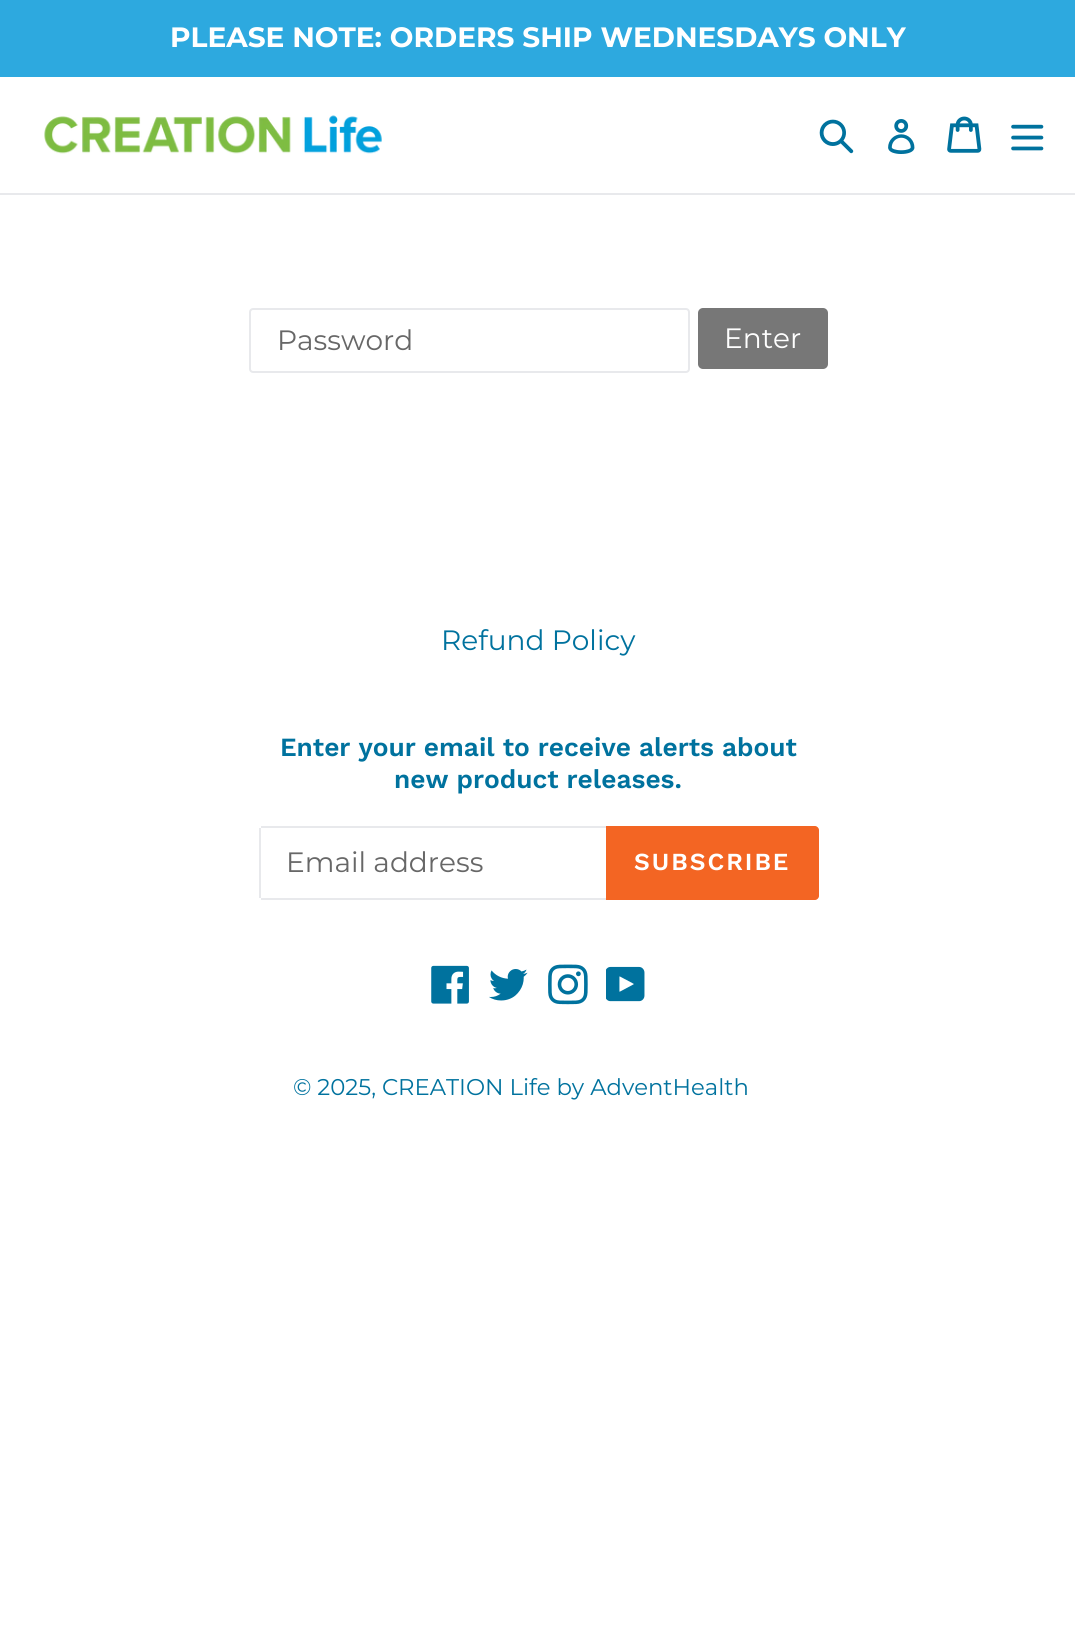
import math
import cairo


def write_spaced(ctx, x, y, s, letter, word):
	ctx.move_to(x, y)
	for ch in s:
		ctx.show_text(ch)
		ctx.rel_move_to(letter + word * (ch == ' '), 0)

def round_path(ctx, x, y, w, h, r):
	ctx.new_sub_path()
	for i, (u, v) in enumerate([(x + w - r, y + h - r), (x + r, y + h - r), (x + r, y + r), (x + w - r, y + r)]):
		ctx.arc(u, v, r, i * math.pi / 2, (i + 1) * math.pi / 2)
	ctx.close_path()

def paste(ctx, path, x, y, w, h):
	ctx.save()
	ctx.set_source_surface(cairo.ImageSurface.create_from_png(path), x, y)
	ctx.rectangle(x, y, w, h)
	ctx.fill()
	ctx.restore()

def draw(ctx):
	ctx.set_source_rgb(1, 1, 1)
	ctx.paint()
	ctx.set_source_rgb(0.176, 0.663, 0.875)
	ctx.rectangle(0, 0, 1075, 77)
	ctx.fill()
	ctx.select_font_face('Montserrat', cairo.FONT_SLANT_NORMAL, cairo.FONT_WEIGHT_BOLD)
	ctx.set_font_size(28)
	ctx.set_source_rgb(1, 1, 1)
	ctx.move_to(170, 47)
	ctx.show_text('PLEASE NOTE: ORDERS SHIP WEDNESDAYS ONLY')
	ctx.set_source_rgb(0.91, 0.914, 0.922)
	ctx.rectangle(0, 193, 1075, 2)
	ctx.fill()
	paste(ctx, 'media/1.png', 44, 115, 338, 39)
	paste(ctx, 'media/2.png', 819, 119, 35, 35)
	paste(ctx, 'media/3.png', 888, 119, 27, 35)
	paste(ctx, 'media/4.png', 947, 116, 35, 37)
	paste(ctx, 'media/5.png', 1011, 124, 33, 27)
	round_path(ctx, 250, 309, 439, 63, 3)
	ctx.stroke()
	ctx.select_font_face('Montserrat')
	ctx.set_source_rgb(0.404, 0.404, 0.404)
	ctx.move_to(277, 350)
	ctx.show_text('Password')
	ctx.set_source_rgb(0.467, 0.467, 0.467)
	round_path(ctx, 698, 308, 130, 61, 5)
	ctx.fill()
	ctx.set_source_rgb(1, 1, 1)
	ctx.move_to(724, 348)
	ctx.show_text('Enter')
	ctx.set_source_rgb(0, 0.447, 0.62)
	ctx.move_to(441, 650)
	ctx.show_text('Refund Policy')
	ctx.select_font_face('Work Sans SemiBold')
	ctx.set_font_size(26.25)
	ctx.move_to(280, 756)
	ctx.show_text('Enter your email to receive alerts about')
	ctx.move_to(394, 788)
	ctx.show_text('new product releases.')
	ctx.set_source_rgb(0.91, 0.914, 0.922)
	ctx.rectangle(261, 826, 345, 2)
	ctx.rectangle(261, 898, 345, 2)
	ctx.rectangle(259, 828, 2, 70)
	ctx.fill()
	ctx.select_font_face('Montserrat')
	ctx.set_font_size(28)
	ctx.set_source_rgb(0.404, 0.404, 0.404)
	ctx.move_to(286, 872)
	ctx.show_text('Email address')
	ctx.set_source_rgb(0.953, 0.396, 0.137)
	ctx.new_path()
	ctx.move_to(606, 826)
	ctx.line_to(815, 826)
	ctx.curve_to(817, 826, 819, 828, 819, 830)
	ctx.line_to(819, 896)
	ctx.curve_to(819, 898, 817, 900, 815, 900)
	ctx.line_to(606, 900)
	ctx.close_path()
	ctx.fill()
	ctx.select_font_face('Work Sans SemiBold')
	ctx.set_font_size(24.5)
	ctx.set_source_rgb(1, 1, 1)
	write_spaced(ctx, 634, 870, 'SUBSCRIBE', 2, 0)
	paste(ctx, 'media/6.png', 431, 965, 38, 39)
	paste(ctx, 'media/7.png', 489, 969, 39, 32)
	paste(ctx, 'media/8.png', 548, 964, 40, 41)
	paste(ctx, 'media/9.png', 606, 966, 39, 36)
	ctx.select_font_face('Montserrat')
	ctx.set_font_size(22.75)
	ctx.set_source_rgb(0, 0.447, 0.62)
	ctx.move_to(293, 1095)
	ctx.show_text('© 2025, CREATION Life by AdventHealth')


surface = cairo.ImageSurface(cairo.FORMAT_RGB24, 1075, 1629)
ctx = cairo.Context(surface)
options = cairo.FontOptions()
options.set_hint_metrics(cairo.HINT_METRICS_OFF)
options.set_hint_style(cairo.HINT_STYLE_NONE)
ctx.set_font_options(options)
ctx.set_miter_limit(4)
draw(ctx)
surface.write_to_png('image.png')
